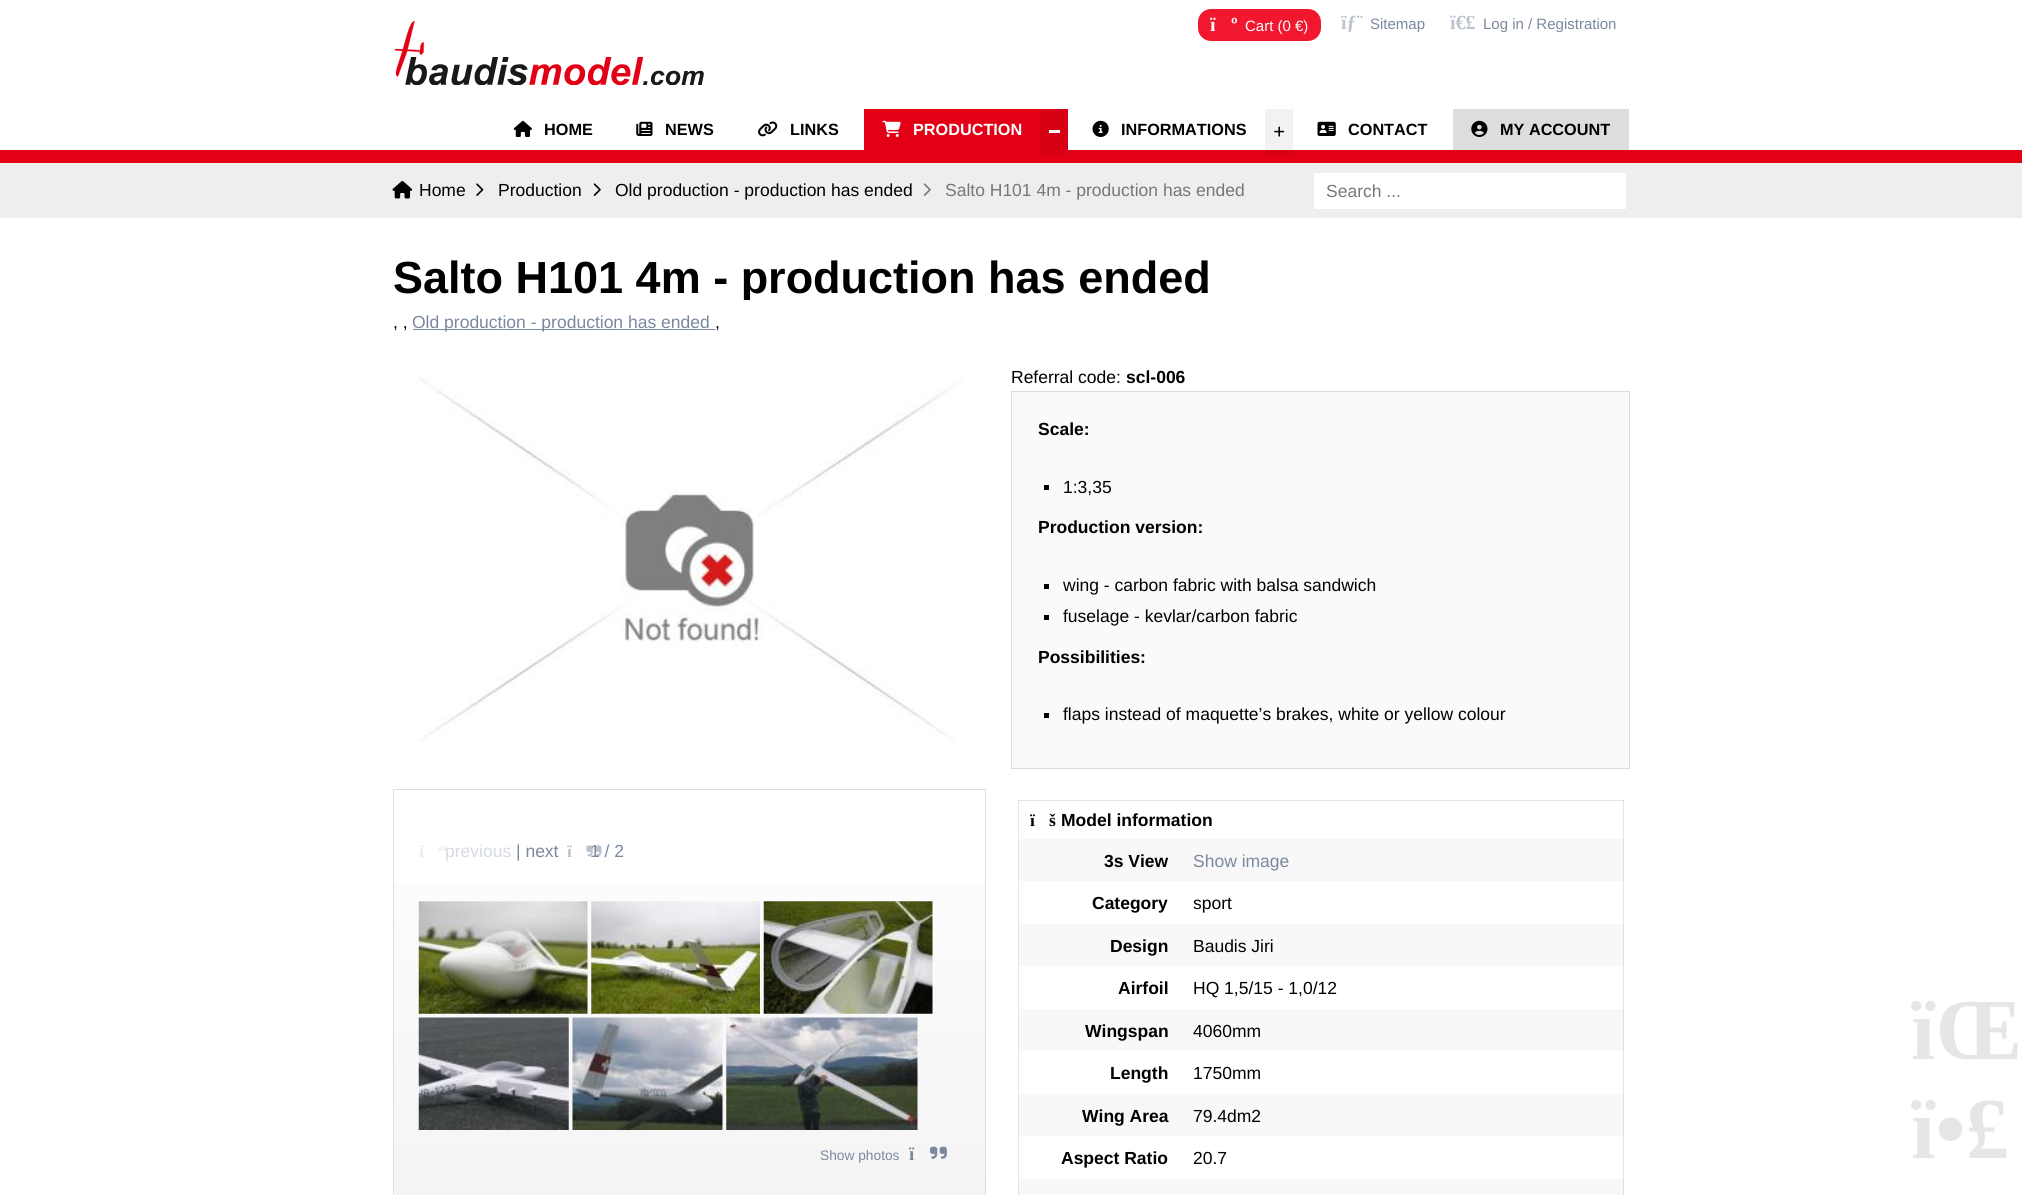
import math
import cairo


def round_path(ctx, x, y, w, h, r):
	ctx.new_sub_path()
	for i, (u, v) in enumerate([(x + w - r, y + h - r), (x + r, y + h - r), (x + r, y + r), (x + w - r, y + r)]):
		ctx.arc(u, v, r, i * math.pi / 2, (i + 1) * math.pi / 2)
	ctx.close_path()

def paste(ctx, path, x, y, w, h):
	ctx.save()
	ctx.set_source_surface(cairo.ImageSurface.create_from_png(path), x, y)
	ctx.rectangle(x, y, w, h)
	ctx.fill()
	ctx.restore()

def draw(ctx):
	ctx.set_source_rgb(1, 1, 1)
	ctx.paint()
	ctx.set_source_rgb(0.949, 0.949, 0.949)
	ctx.rectangle(1265, 109, 28, 41)
	ctx.fill()
	ctx.set_source_rgb(0.902, 0.902, 0.902)
	ctx.rectangle(1018, 800, 1, 395)
	ctx.rectangle(1623, 800, 1, 379)
	ctx.fill()
	ctx.set_source_rgb(0.89, 0, 0.086)
	ctx.rectangle(0, 150, 2022, 13)
	ctx.fill()
	ctx.set_source_rgb(0.847, 0, 0.082)
	ctx.rectangle(1265, 150, 28, 4)
	ctx.fill()
	paste(ctx, 'media/1.png', 394, 20, 310, 65)
	ctx.set_source_rgb(0.941, 0.09, 0.18)
	round_path(ctx, 1198, 9, 123, 32, 13)
	ctx.fill()
	ctx.select_font_face('Liberation Serif', cairo.FONT_SLANT_NORMAL, cairo.FONT_WEIGHT_BOLD)
	ctx.set_font_size(20)
	ctx.set_source_rgb(1, 1, 1)
	ctx.move_to(1210, 31)
	ctx.show_text('ï')
	ctx.move_to(1231, 31)
	ctx.show_text('º')
	ctx.select_font_face('Liberation Sans')
	ctx.set_font_size(15)
	ctx.move_to(1245, 31)
	ctx.show_text('Cart (0 €)')
	ctx.select_font_face('Liberation Serif', cairo.FONT_SLANT_NORMAL, cairo.FONT_WEIGHT_BOLD)
	ctx.set_font_size(20)
	ctx.set_source_rgb(0.737, 0.765, 0.808)
	ctx.move_to(1341, 29)
	ctx.show_text('ïƒ¨')
	ctx.select_font_face('Liberation Sans')
	ctx.set_font_size(15)
	ctx.set_source_rgb(0.478, 0.533, 0.62)
	ctx.move_to(1370, 29)
	ctx.show_text('Sitemap')
	ctx.select_font_face('Liberation Serif', cairo.FONT_SLANT_NORMAL, cairo.FONT_WEIGHT_BOLD)
	ctx.set_font_size(20)
	ctx.set_source_rgb(0.737, 0.765, 0.808)
	ctx.move_to(1450, 29)
	ctx.show_text('ï€£')
	ctx.select_font_face('Liberation Sans')
	ctx.set_font_size(15)
	ctx.set_source_rgb(0.478, 0.533, 0.62)
	ctx.move_to(1483, 29)
	ctx.show_text('Log in / Registration')
	paste(ctx, 'media/2.png', 513, 120, 19, 17)
	ctx.select_font_face('Liberation Sans', cairo.FONT_SLANT_NORMAL, cairo.FONT_WEIGHT_BOLD)
	ctx.set_font_size(16.25)
	ctx.set_source_rgb(0, 0, 0)
	ctx.move_to(544, 135)
	ctx.show_text('HOME')
	paste(ctx, 'media/3.png', 636, 121, 17, 15)
	ctx.move_to(665, 135)
	ctx.show_text('NEWS')
	paste(ctx, 'media/4.png', 758, 121, 20, 16)
	ctx.move_to(790, 135)
	ctx.show_text('LINKS')
	ctx.set_source_rgb(0.89, 0, 0.086)
	ctx.rectangle(864, 109, 176, 41)
	ctx.fill()
	paste(ctx, 'media/5.png', 882, 120, 19, 17)
	ctx.set_source_rgb(1, 1, 1)
	ctx.move_to(913, 135)
	ctx.show_text('PRODUCTION')
	ctx.set_source_rgb(0.847, 0, 0.082)
	ctx.rectangle(1040, 109, 28, 45)
	ctx.fill()
	ctx.set_source_rgb(1, 1, 1)
	ctx.rectangle(1049, 130, 11, 3)
	ctx.fill()
	paste(ctx, 'media/6.png', 1092, 120, 17, 17)
	ctx.set_source_rgb(0, 0, 0)
	ctx.move_to(1121, 135)
	ctx.show_text('INFORMATIONS')
	paste(ctx, 'media/7.png', 1274, 126, 11, 11)
	paste(ctx, 'media/8.png', 1317, 121, 19, 15)
	ctx.move_to(1348, 135)
	ctx.show_text('CONTACT')
	ctx.set_source_rgb(0.867, 0.867, 0.867)
	ctx.rectangle(1453, 109, 176, 41)
	ctx.fill()
	paste(ctx, 'media/9.png', 1471, 120, 17, 17)
	ctx.set_source_rgb(0, 0, 0)
	ctx.move_to(1500, 135)
	ctx.show_text('MY ACCOUNT')
	ctx.set_source_rgb(0.933, 0.933, 0.933)
	ctx.rectangle(0, 163, 2022, 55)
	ctx.fill()
	ctx.set_source_rgb(1, 1, 1)
	ctx.rectangle(1314, 173, 312, 36)
	ctx.fill()
	ctx.select_font_face('Liberation Sans')
	ctx.set_font_size(17.5)
	ctx.set_source_rgb(0.467, 0.467, 0.467)
	ctx.move_to(1326, 197)
	ctx.show_text('Search ...')
	paste(ctx, 'media/10.png', 392, 181, 21, 18)
	ctx.set_source_rgb(0, 0, 0)
	ctx.move_to(419, 196)
	ctx.show_text('Home')
	paste(ctx, 'media/11.png', 476, 183, 8, 13)
	ctx.move_to(498, 196)
	ctx.show_text('Production')
	paste(ctx, 'media/12.png', 593, 183, 8, 13)
	ctx.move_to(615, 196)
	ctx.show_text('Old production - production has ended')
	paste(ctx, 'media/13.png', 923, 183, 8, 13)
	ctx.set_source_rgb(0.467, 0.467, 0.467)
	ctx.move_to(945, 196)
	ctx.show_text('Salto H101 4m - production has ended')
	ctx.save()
	ctx.rectangle(393, 255, 1237, 45)
	ctx.clip()
	ctx.select_font_face('Liberation Sans', cairo.FONT_SLANT_NORMAL, cairo.FONT_WEIGHT_BOLD)
	ctx.set_font_size(45)
	ctx.set_source_rgb(0, 0, 0)
	ctx.move_to(393, 293)
	ctx.show_text('Salto H101 4m - production has ended')
	ctx.restore()
	ctx.set_source_rgb(0, 0, 0)
	ctx.move_to(393, 328)
	ctx.show_text(', ,')
	ctx.set_source_rgb(0.478, 0.533, 0.62)
	ctx.rectangle(413, 329, 302, 1)
	ctx.fill()
	ctx.move_to(412, 328)
	ctx.show_text('Old production - production has ended')
	ctx.set_source_rgb(0, 0, 0)
	ctx.move_to(715, 328)
	ctx.show_text(',')
	paste(ctx, 'media/14.png', 418, 376, 545, 367)
	gradient = cairo.LinearGradient(689, 790, 689, 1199)
	gradient.add_color_stop_rgba(0, 1, 1, 1, 1)
	gradient.add_color_stop_rgba(1, 0.957, 0.957, 0.957, 1)
	ctx.set_source(gradient)
	ctx.rectangle(394, 883, 591, 312)
	ctx.fill()
	ctx.rectangle(393.5, 789.5, 592, 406)
	ctx.set_source_rgb(0.867, 0.867, 0.867)
	ctx.set_line_width(1)
	ctx.stroke()
	ctx.select_font_face('Liberation Serif', cairo.FONT_SLANT_NORMAL, cairo.FONT_WEIGHT_BOLD)
	ctx.set_source_rgb(0.914, 0.925, 0.937)
	ctx.move_to(419, 857)
	ctx.show_text('ï')
	ctx.move_to(438, 857)
	ctx.show_text('“')
	ctx.select_font_face('Liberation Sans')
	ctx.set_source_rgb(0.839, 0.855, 0.882)
	ctx.move_to(445, 857)
	ctx.show_text('previous')
	ctx.set_source_rgb(0.478, 0.533, 0.62)
	ctx.move_to(516, 857)
	ctx.show_text('| next')
	ctx.select_font_face('Liberation Serif', cairo.FONT_SLANT_NORMAL, cairo.FONT_WEIGHT_BOLD)
	ctx.set_source_rgb(0.737, 0.765, 0.808)
	ctx.move_to(567, 857)
	ctx.show_text('ï')
	ctx.select_font_face('Liberation Sans')
	ctx.set_source_rgb(0.478, 0.533, 0.62)
	ctx.move_to(590, 857)
	ctx.show_text('1 / 2')
	paste(ctx, 'media/15.png', 586, 845, 16, 12)
	paste(ctx, 'media/16.png', 418, 901, 170, 113)
	paste(ctx, 'media/17.png', 591, 901, 169, 113)
	paste(ctx, 'media/18.png', 763, 901, 170, 113)
	paste(ctx, 'media/19.png', 418, 1017, 151, 113)
	paste(ctx, 'media/20.png', 572, 1017, 151, 113)
	paste(ctx, 'media/21.png', 726, 1017, 192, 113)
	ctx.set_font_size(13.75)
	ctx.move_to(820, 1160)
	ctx.show_text('Show photos')
	ctx.select_font_face('Liberation Serif', cairo.FONT_SLANT_NORMAL, cairo.FONT_WEIGHT_BOLD)
	ctx.set_font_size(19)
	ctx.move_to(909, 1160)
	ctx.show_text('ï')
	paste(ctx, 'media/22.png', 930, 1146, 17, 13)
	ctx.select_font_face('Liberation Sans')
	ctx.set_font_size(17.5)
	ctx.set_source_rgb(0, 0, 0)
	ctx.move_to(1011, 383)
	ctx.show_text('Referral code:')
	ctx.select_font_face('Liberation Sans', cairo.FONT_SLANT_NORMAL, cairo.FONT_WEIGHT_BOLD)
	ctx.move_to(1126, 383)
	ctx.show_text('scl-006')
	ctx.set_source_rgb(0.98, 0.98, 0.98)
	ctx.rectangle(1011.5, 391.5, 618, 377)
	ctx.fill_preserve()
	ctx.set_source_rgb(0.855, 0.855, 0.855)
	ctx.stroke()
	ctx.set_source_rgb(0, 0, 0)
	ctx.move_to(1038, 435)
	ctx.show_text('Scale:')
	ctx.rectangle(1044, 485, 5, 5)
	ctx.fill()
	ctx.select_font_face('Liberation Sans')
	ctx.move_to(1063, 493)
	ctx.show_text('1:3,35')
	ctx.select_font_face('Liberation Sans', cairo.FONT_SLANT_NORMAL, cairo.FONT_WEIGHT_BOLD)
	ctx.move_to(1038, 533)
	ctx.show_text('Production version:')
	ctx.rectangle(1044, 584, 5, 5)
	ctx.fill()
	ctx.select_font_face('Liberation Sans')
	ctx.move_to(1063, 591)
	ctx.show_text('wing - carbon fabric with balsa sandwich')
	ctx.rectangle(1044, 615, 5, 5)
	ctx.fill()
	ctx.move_to(1063, 622)
	ctx.show_text('fuselage - kevlar/carbon fabric')
	ctx.select_font_face('Liberation Sans', cairo.FONT_SLANT_NORMAL, cairo.FONT_WEIGHT_BOLD)
	ctx.move_to(1038, 663)
	ctx.show_text('Possibilities:')
	ctx.rectangle(1044, 713, 5, 5)
	ctx.fill()
	ctx.select_font_face('Liberation Sans')
	ctx.move_to(1063, 720)
	ctx.show_text('flaps instead of maquette’s brakes, white or yellow colour')
	ctx.set_source_rgb(0.902, 0.902, 0.902)
	ctx.rectangle(1018, 800, 606, 1)
	ctx.fill()
	ctx.set_source_rgb(0.812, 0.812, 0.812)
	ctx.rectangle(1018, 800, 1, 1)
	ctx.rectangle(1623, 800, 1, 1)
	ctx.fill()
	ctx.select_font_face('Liberation Serif', cairo.FONT_SLANT_NORMAL, cairo.FONT_WEIGHT_BOLD)
	ctx.set_source_rgb(0, 0, 0)
	ctx.move_to(1030, 826)
	ctx.show_text('ï')
	ctx.move_to(1049, 826)
	ctx.show_text('š')
	ctx.select_font_face('Liberation Sans', cairo.FONT_SLANT_NORMAL, cairo.FONT_WEIGHT_BOLD)
	ctx.move_to(1061, 826)
	ctx.show_text('Model information')
	ctx.set_source_rgb(0.969, 0.969, 0.969)
	ctx.rectangle(1019, 839, 604, 42)
	ctx.fill()
	ctx.set_source_rgb(0, 0, 0)
	ctx.move_to(1104, 867)
	ctx.show_text('3s View')
	ctx.set_source_rgb(0.871, 0.871, 0.871)
	ctx.rectangle(1623, 839, 1, 42)
	ctx.fill()
	ctx.select_font_face('Liberation Sans')
	ctx.set_source_rgb(0.478, 0.533, 0.62)
	ctx.move_to(1193, 867)
	ctx.show_text('Show image')
	ctx.select_font_face('Liberation Sans', cairo.FONT_SLANT_NORMAL, cairo.FONT_WEIGHT_BOLD)
	ctx.set_source_rgb(0, 0, 0)
	ctx.move_to(1092, 909)
	ctx.show_text('Category')
	ctx.select_font_face('Liberation Sans')
	ctx.move_to(1193, 909)
	ctx.show_text('sport')
	ctx.set_source_rgb(0.969, 0.969, 0.969)
	ctx.rectangle(1019, 924, 604, 42)
	ctx.fill()
	ctx.select_font_face('Liberation Sans', cairo.FONT_SLANT_NORMAL, cairo.FONT_WEIGHT_BOLD)
	ctx.set_source_rgb(0, 0, 0)
	ctx.move_to(1110, 952)
	ctx.show_text('Design')
	ctx.set_source_rgb(0.871, 0.871, 0.871)
	ctx.rectangle(1623, 924, 1, 42)
	ctx.fill()
	ctx.select_font_face('Liberation Sans')
	ctx.set_source_rgb(0, 0, 0)
	ctx.move_to(1193, 952)
	ctx.show_text('Baudis Jiri')
	ctx.select_font_face('Liberation Sans', cairo.FONT_SLANT_NORMAL, cairo.FONT_WEIGHT_BOLD)
	ctx.move_to(1118, 994)
	ctx.show_text('Airfoil')
	ctx.select_font_face('Liberation Sans')
	ctx.move_to(1193, 994)
	ctx.show_text('HQ 1,5/15 - 1,0/12')
	ctx.set_source_rgb(0.969, 0.969, 0.969)
	ctx.rectangle(1019, 1009, 604, 42)
	ctx.fill()
	ctx.select_font_face('Liberation Sans', cairo.FONT_SLANT_NORMAL, cairo.FONT_WEIGHT_BOLD)
	ctx.set_source_rgb(0, 0, 0)
	ctx.move_to(1085, 1037)
	ctx.show_text('Wingspan')
	ctx.set_source_rgb(0.871, 0.871, 0.871)
	ctx.rectangle(1623, 1009, 1, 42)
	ctx.fill()
	ctx.select_font_face('Liberation Sans')
	ctx.set_source_rgb(0, 0, 0)
	ctx.move_to(1193, 1037)
	ctx.show_text('4060mm')
	ctx.select_font_face('Liberation Sans', cairo.FONT_SLANT_NORMAL, cairo.FONT_WEIGHT_BOLD)
	ctx.move_to(1110, 1079)
	ctx.show_text('Length')
	ctx.select_font_face('Liberation Sans')
	ctx.move_to(1193, 1079)
	ctx.show_text('1750mm')
	ctx.set_source_rgb(0.969, 0.969, 0.969)
	ctx.rectangle(1019, 1094, 604, 42)
	ctx.fill()
	ctx.select_font_face('Liberation Sans', cairo.FONT_SLANT_NORMAL, cairo.FONT_WEIGHT_BOLD)
	ctx.set_source_rgb(0, 0, 0)
	ctx.move_to(1082, 1122)
	ctx.show_text('Wing Area')
	ctx.set_source_rgb(0.871, 0.871, 0.871)
	ctx.rectangle(1623, 1094, 1, 42)
	ctx.fill()
	ctx.select_font_face('Liberation Sans')
	ctx.set_source_rgb(0, 0, 0)
	ctx.move_to(1193, 1122)
	ctx.show_text('79.4dm2')
	ctx.select_font_face('Liberation Sans', cairo.FONT_SLANT_NORMAL, cairo.FONT_WEIGHT_BOLD)
	ctx.move_to(1061, 1164)
	ctx.show_text('Aspect Ratio')
	ctx.select_font_face('Liberation Sans')
	ctx.move_to(1193, 1164)
	ctx.show_text('20.7')
	ctx.set_source_rgb(0.969, 0.969, 0.969)
	ctx.rectangle(1019, 1179, 604, 16)
	ctx.fill()
	ctx.set_source_rgb(0.871, 0.871, 0.871)
	ctx.rectangle(1623, 1179, 1, 16)
	ctx.fill()
	ctx.select_font_face('Liberation Serif', cairo.FONT_SLANT_NORMAL, cairo.FONT_WEIGHT_BOLD)
	ctx.set_font_size(87)
	ctx.set_source_rgb(0.902, 0.902, 0.902)
	ctx.move_to(1911, 1059)
	ctx.show_text('ïŒ')
	ctx.move_to(1911, 1158)
	ctx.show_text('ï•£')


surface = cairo.ImageSurface(cairo.FORMAT_RGB24, 2022, 1195)
ctx = cairo.Context(surface)
options = cairo.FontOptions()
options.set_hint_metrics(cairo.HINT_METRICS_OFF)
options.set_hint_style(cairo.HINT_STYLE_NONE)
ctx.set_font_options(options)
ctx.set_miter_limit(4)
draw(ctx)
surface.write_to_png('image.png')
